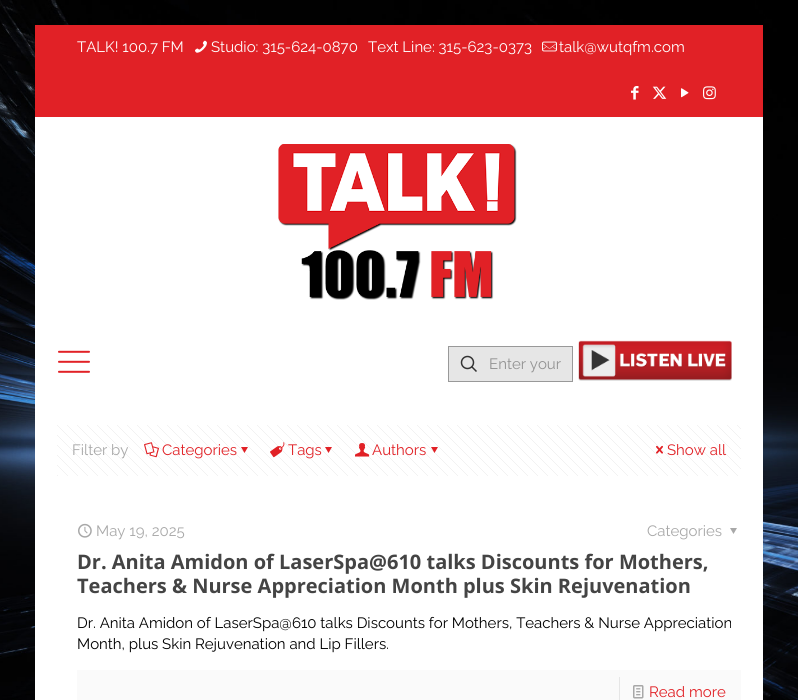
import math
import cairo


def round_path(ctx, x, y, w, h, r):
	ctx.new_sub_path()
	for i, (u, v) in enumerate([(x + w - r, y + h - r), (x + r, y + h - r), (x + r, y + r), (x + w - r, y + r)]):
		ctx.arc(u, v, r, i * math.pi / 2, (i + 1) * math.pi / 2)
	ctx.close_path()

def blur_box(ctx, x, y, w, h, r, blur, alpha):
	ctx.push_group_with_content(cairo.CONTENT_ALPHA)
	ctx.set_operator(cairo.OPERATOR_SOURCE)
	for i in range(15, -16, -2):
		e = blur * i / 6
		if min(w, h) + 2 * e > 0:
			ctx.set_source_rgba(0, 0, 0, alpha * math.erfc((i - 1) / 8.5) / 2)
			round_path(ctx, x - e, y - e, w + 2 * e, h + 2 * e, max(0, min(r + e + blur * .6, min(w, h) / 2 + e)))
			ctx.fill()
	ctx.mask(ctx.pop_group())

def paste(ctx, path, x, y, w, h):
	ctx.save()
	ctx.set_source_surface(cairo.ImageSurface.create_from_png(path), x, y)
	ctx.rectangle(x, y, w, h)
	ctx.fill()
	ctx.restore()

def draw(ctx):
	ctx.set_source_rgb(1, 1, 1)
	ctx.paint()
	paste(ctx, 'media/1.png', 0, 0, 798, 700)
	ctx.set_source_rgb(0, 0, 0)
	blur_box(ctx, 35, 25, 728, 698, 0, 7.5, 0.06)
	ctx.set_source_rgb(0.882, 0.129, 0.149)
	ctx.rectangle(35, 25, 728, 92)
	ctx.fill()
	ctx.select_font_face('Raleway')
	ctx.set_font_size(15)
	ctx.set_source_rgb(1, 1, 1)
	ctx.move_to(77, 52)
	ctx.show_text('TALK! 100.7 FM')
	paste(ctx, 'media/2.png', 195, 40, 12, 13)
	ctx.move_to(211, 52)
	ctx.show_text('Studio: 315-624-0870')
	ctx.move_to(368, 52)
	ctx.show_text('Text Line: 315-623-0373')
	paste(ctx, 'media/3.png', 542, 41, 15, 11)
	ctx.move_to(559, 52)
	ctx.show_text('talk@wutqfm.com')
	paste(ctx, 'media/4.png', 631, 86, 8, 14)
	paste(ctx, 'media/5.png', 652, 86, 15, 13)
	paste(ctx, 'media/6.png', 681, 88, 8, 10)
	paste(ctx, 'media/7.png', 703, 86, 13, 14)
	ctx.rectangle(35, 117, 728, 583)
	ctx.fill()
	paste(ctx, 'media/8.png', 278, 144, 239, 156)
	paste(ctx, 'media/9.png', 58, 350, 32, 23)
	ctx.set_source_rgb(0.902, 0.902, 0.902)
	ctx.rectangle(448.5, 346.5, 124, 35)
	ctx.fill_preserve()
	ctx.set_source_rgb(0.6, 0.6, 0.6)
	ctx.set_line_width(1)
	ctx.stroke()
	ctx.arc(467.5, 362.5, 6, 0, 2 * math.pi)
	ctx.set_source_rgb(0.2, 0.2, 0.2)
	ctx.set_line_width(1.5)
	ctx.stroke()
	ctx.new_path()
	ctx.move_to(471.5, 366.5)
	ctx.line_to(476.5, 371.5)
	ctx.stroke()
	ctx.set_source_rgb(0.573, 0.573, 0.573)
	ctx.move_to(489, 369)
	ctx.show_text('Enter your')
	paste(ctx, 'media/10.png', 578, 340, 154, 41)
	paste(ctx, 'media/11.png', 57, 425, 684, 51)
	ctx.set_source_rgb(0.659, 0.659, 0.659)
	ctx.move_to(72, 455)
	ctx.show_text('Filter by')
	paste(ctx, 'media/12.png', 144, 442, 15, 16)
	ctx.set_source_rgb(0.882, 0.129, 0.149)
	ctx.move_to(162, 455)
	ctx.show_text('Categories')
	ctx.new_path()
	ctx.move_to(248, 447)
	ctx.line_to(244.5, 453)
	ctx.line_to(241, 447)
	ctx.close_path()
	ctx.fill()
	paste(ctx, 'media/13.png', 270, 442, 15, 16)
	ctx.move_to(288, 455)
	ctx.show_text('Tags')
	ctx.new_path()
	ctx.move_to(332, 447)
	ctx.line_to(328.5, 453)
	ctx.line_to(325, 447)
	ctx.close_path()
	ctx.fill()
	paste(ctx, 'media/14.png', 355, 443, 15, 14)
	ctx.move_to(372, 455)
	ctx.show_text('Authors')
	ctx.new_path()
	ctx.move_to(438, 447)
	ctx.line_to(434.5, 453)
	ctx.line_to(431, 447)
	ctx.close_path()
	ctx.fill()
	paste(ctx, 'media/15.png', 656, 445, 7, 9)
	ctx.move_to(667, 455)
	ctx.show_text('Show all')
	paste(ctx, 'media/16.png', 78, 523, 14, 15)
	ctx.set_source_rgb(0.659, 0.659, 0.659)
	ctx.move_to(96, 536)
	ctx.show_text('May 19, 2025')
	ctx.move_to(647, 536)
	ctx.show_text('Categories')
	ctx.new_path()
	ctx.move_to(737, 528)
	ctx.line_to(733.5, 534)
	ctx.line_to(730, 528)
	ctx.close_path()
	ctx.fill()
	ctx.select_font_face('Open Sans', cairo.FONT_SLANT_NORMAL, cairo.FONT_WEIGHT_BOLD)
	ctx.set_font_size(20)
	ctx.set_source_rgb(0.267, 0.267, 0.267)
	ctx.move_to(77, 569)
	ctx.show_text('Dr. Anita Amidon of LaserSpa@610 talks Discounts for Mothers,')
	ctx.move_to(77, 593)
	ctx.show_text('Teachers & Nurse Appreciation Month plus Skin Rejuvenation')
	ctx.select_font_face('Raleway')
	ctx.set_font_size(15)
	ctx.set_source_rgb(0, 0, 0)
	ctx.move_to(77, 628)
	ctx.show_text('Dr. Anita Amidon of LaserSpa@610 talks Discounts for Mothers, Teachers & Nurse Appreciation')
	ctx.move_to(77, 649)
	ctx.show_text('Month, plus Skin Rejuvenation and Lip Fillers.')
	ctx.set_source_rgb(0.98, 0.98, 0.98)
	ctx.rectangle(77, 670, 664, 30)
	ctx.fill()
	ctx.set_source_rgb(0.902, 0.902, 0.902)
	ctx.rectangle(619, 677, 1, 23)
	ctx.fill()
	paste(ctx, 'media/17.png', 633, 685, 11, 14)
	ctx.set_source_rgb(0.882, 0.129, 0.149)
	ctx.move_to(649, 697)
	ctx.show_text('Read more')


surface = cairo.ImageSurface(cairo.FORMAT_RGB24, 798, 700)
ctx = cairo.Context(surface)
options = cairo.FontOptions()
options.set_hint_metrics(cairo.HINT_METRICS_OFF)
options.set_hint_style(cairo.HINT_STYLE_NONE)
ctx.set_font_options(options)
ctx.set_miter_limit(4)
draw(ctx)
surface.write_to_png('image.png')
